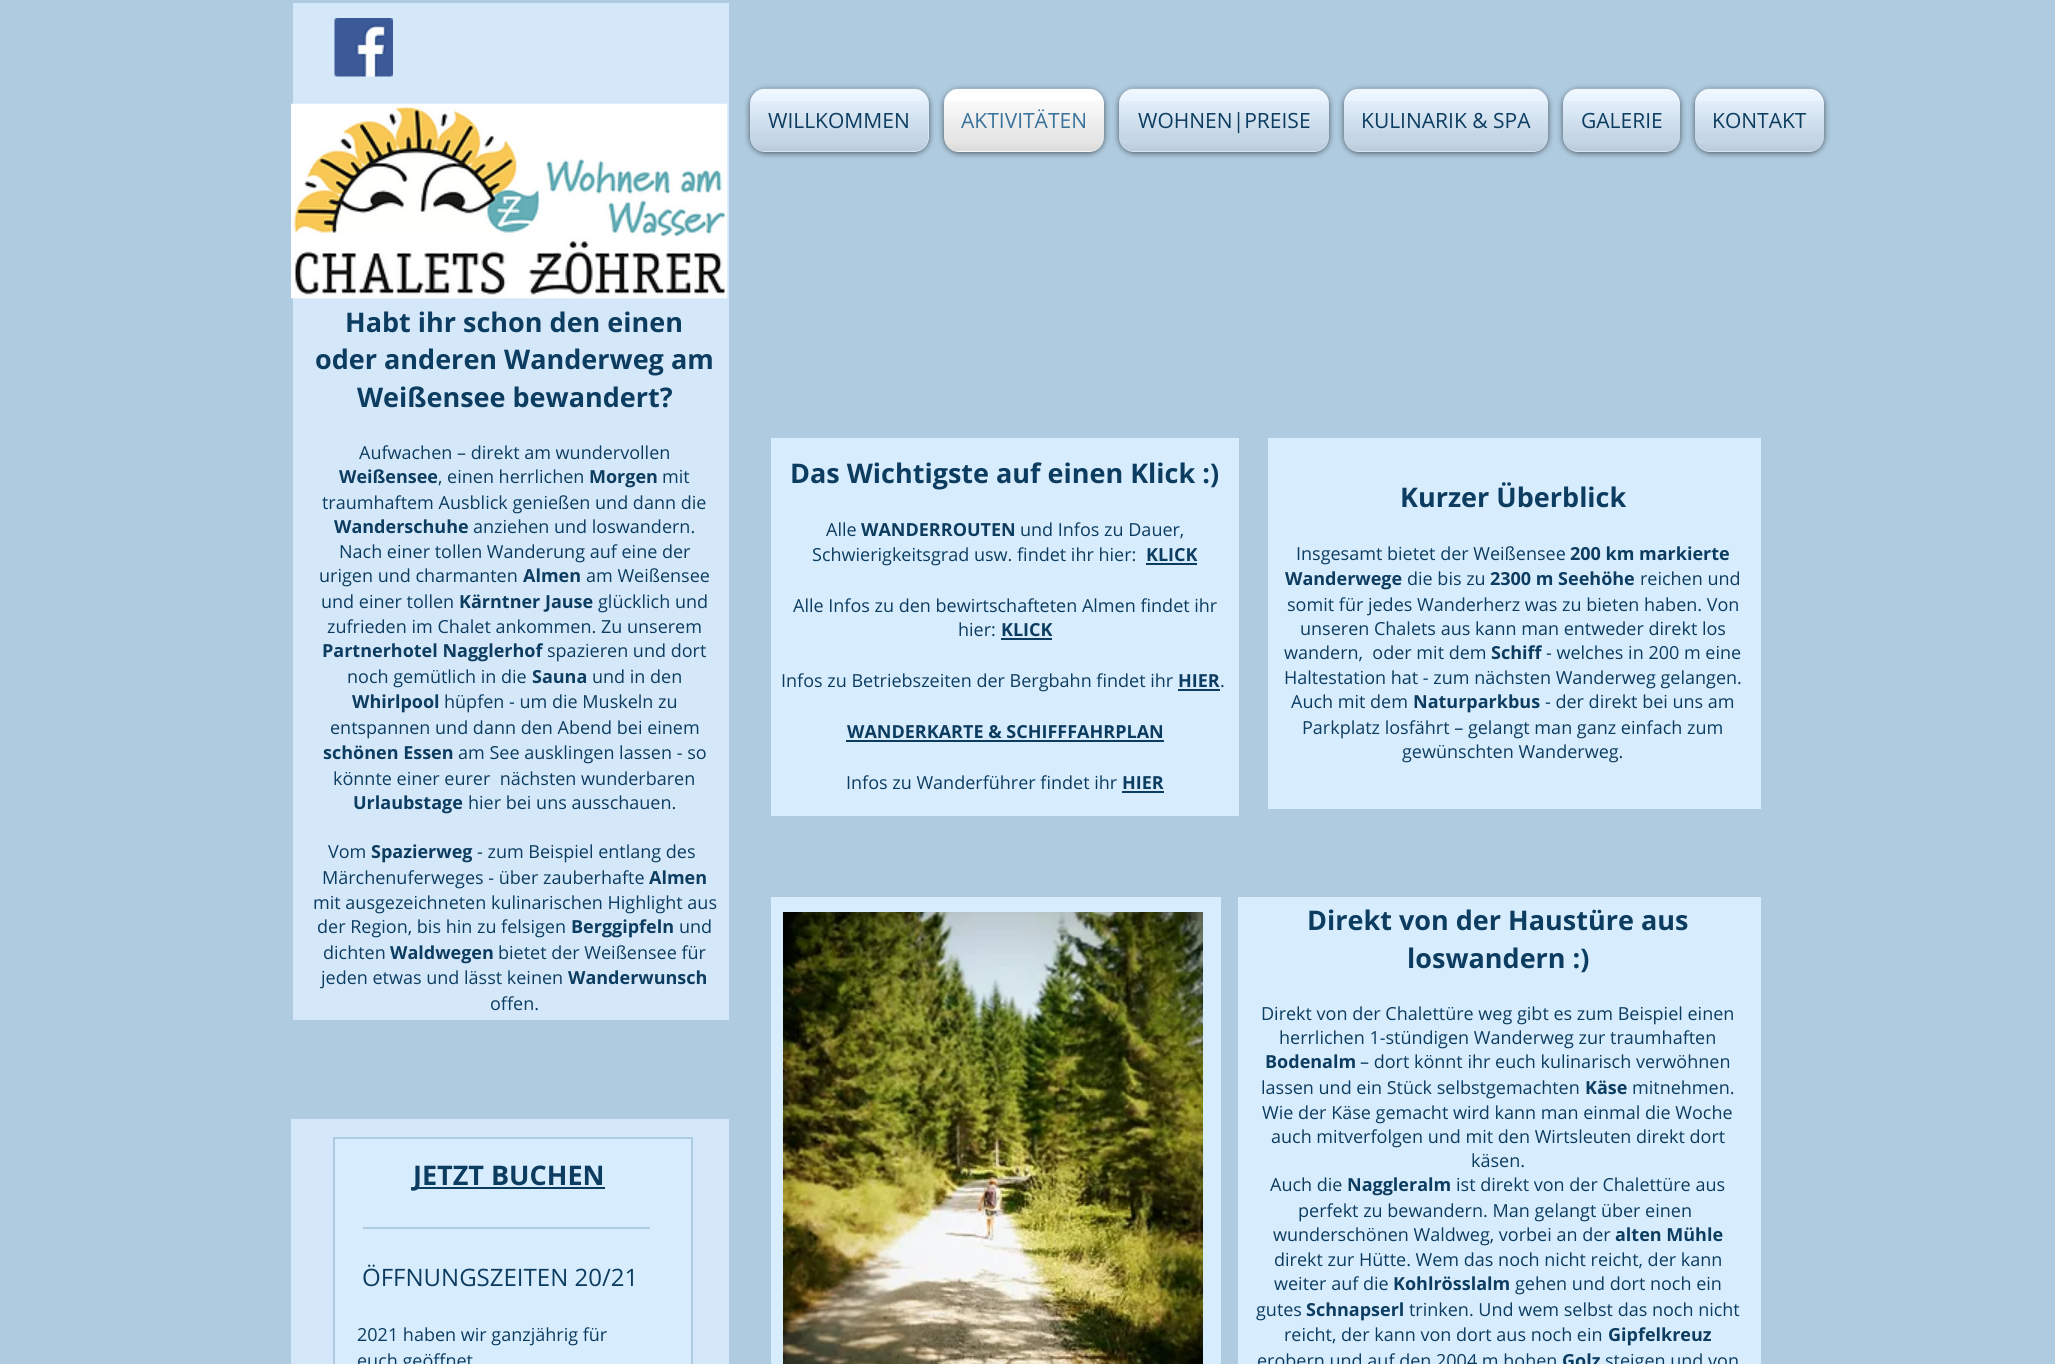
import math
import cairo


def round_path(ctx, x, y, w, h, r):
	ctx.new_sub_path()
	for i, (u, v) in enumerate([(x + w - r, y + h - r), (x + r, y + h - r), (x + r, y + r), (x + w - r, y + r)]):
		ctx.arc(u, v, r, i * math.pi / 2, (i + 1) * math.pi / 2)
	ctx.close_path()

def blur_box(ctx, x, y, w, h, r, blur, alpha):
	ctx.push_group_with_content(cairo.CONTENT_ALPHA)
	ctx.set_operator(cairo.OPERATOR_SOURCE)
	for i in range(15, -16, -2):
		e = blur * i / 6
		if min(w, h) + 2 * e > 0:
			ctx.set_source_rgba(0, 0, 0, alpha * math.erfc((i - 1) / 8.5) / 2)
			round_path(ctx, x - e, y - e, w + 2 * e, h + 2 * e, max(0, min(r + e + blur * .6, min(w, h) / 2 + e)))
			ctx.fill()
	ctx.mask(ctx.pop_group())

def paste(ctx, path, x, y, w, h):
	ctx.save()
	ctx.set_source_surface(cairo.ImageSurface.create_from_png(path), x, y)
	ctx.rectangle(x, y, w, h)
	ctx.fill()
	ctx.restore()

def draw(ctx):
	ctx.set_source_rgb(0.686, 0.796, 0.878)
	ctx.paint()
	ctx.set_source_rgb(0.831, 0.91, 0.98)
	ctx.rectangle(293, 3, 436, 252)
	ctx.fill()
	paste(ctx, 'media/1.png', 334, 18, 59, 59)
	ctx.rectangle(293, 257, 436, 763)
	ctx.fill()
	ctx.set_source_rgb(0.851, 0.925, 0.996)
	ctx.rectangle(727, 255, 2, 2)
	ctx.fill()
	paste(ctx, 'media/2.png', 291, 103, 437, 196)
	ctx.set_source_rgb(0, 0, 0)
	blur_box(ctx, 750, 90, 179, 63, 15, 3, 0.6)
	ctx.set_source_rgb(0.855, 0.929, 1)
	round_path(ctx, 750, 89, 179, 63, 15)
	ctx.fill()
	paste(ctx, 'media/3.png', 750, 88, 178, 45)
	paste(ctx, 'media/4.png', 750, 101, 179, 51)
	ctx.select_font_face('Open Sans')
	ctx.set_font_size(21)
	ctx.set_source_rgb(0.047, 0.235, 0.376)
	ctx.move_to(768, 128)
	ctx.show_text('WILLKOMMEN')
	ctx.set_source_rgb(0, 0, 0)
	blur_box(ctx, 944, 90, 160, 63, 15, 3, 0.6)
	ctx.set_source_rgb(1, 1, 1)
	round_path(ctx, 944, 89, 160, 63, 15)
	ctx.fill()
	paste(ctx, 'media/5.png', 943, 88, 161, 37)
	paste(ctx, 'media/6.png', 943, 101, 161, 51)
	ctx.set_source_rgb(0.224, 0.447, 0.608)
	ctx.move_to(961, 128)
	ctx.show_text('AKTIVITÄTEN')
	ctx.set_source_rgb(0, 0, 0)
	blur_box(ctx, 1119, 90, 210, 63, 15, 3, 0.6)
	ctx.set_source_rgb(0.855, 0.929, 1)
	round_path(ctx, 1119, 89, 210, 63, 15)
	ctx.fill()
	paste(ctx, 'media/7.png', 1119, 88, 210, 45)
	paste(ctx, 'media/8.png', 1119, 101, 210, 51)
	ctx.set_source_rgb(0.047, 0.235, 0.376)
	ctx.move_to(1138, 128)
	ctx.show_text('WOHNEN|PREISE')
	ctx.set_source_rgb(0, 0, 0)
	blur_box(ctx, 1344, 90, 204, 63, 15, 3, 0.6)
	ctx.set_source_rgb(0.855, 0.929, 1)
	round_path(ctx, 1344, 89, 204, 63, 15)
	ctx.fill()
	paste(ctx, 'media/9.png', 1344, 88, 204, 45)
	paste(ctx, 'media/10.png', 1344, 101, 204, 51)
	ctx.set_source_rgb(0.047, 0.235, 0.376)
	ctx.move_to(1361, 128)
	ctx.show_text('KULINARIK & SPA')
	ctx.set_source_rgb(0, 0, 0)
	blur_box(ctx, 1563, 90, 117, 63, 15, 3, 0.6)
	ctx.set_source_rgb(0.855, 0.929, 1)
	round_path(ctx, 1563, 89, 117, 63, 15)
	ctx.fill()
	paste(ctx, 'media/11.png', 1563, 88, 117, 45)
	paste(ctx, 'media/12.png', 1563, 101, 117, 51)
	ctx.set_source_rgb(0.047, 0.235, 0.376)
	ctx.move_to(1581, 128)
	ctx.show_text('GALERIE')
	ctx.set_source_rgb(0, 0, 0)
	blur_box(ctx, 1695, 90, 129, 63, 15, 3, 0.6)
	ctx.set_source_rgb(0.855, 0.929, 1)
	round_path(ctx, 1695, 89, 129, 63, 15)
	ctx.fill()
	paste(ctx, 'media/13.png', 1695, 88, 129, 45)
	paste(ctx, 'media/14.png', 1695, 101, 129, 51)
	ctx.set_source_rgb(0.047, 0.235, 0.376)
	ctx.move_to(1712, 128)
	ctx.show_text('KONTAKT')
	ctx.select_font_face('Open Sans', cairo.FONT_SLANT_NORMAL, cairo.FONT_WEIGHT_BOLD)
	ctx.set_font_size(27)
	for x, y, s in [
		(345, 332, 'Habt ihr schon den einen'),
		(315, 369, 'oder anderen Wanderweg am'),
		(357, 407, 'Weißensee bewandert?'),
	]:
		ctx.move_to(x, y)
		ctx.show_text(s)
	ctx.select_font_face('Open Sans')
	ctx.set_font_size(18)
	ctx.move_to(359, 459)
	ctx.show_text('Aufwachen – direkt am wundervollen')
	ctx.select_font_face('Open Sans', cairo.FONT_SLANT_NORMAL, cairo.FONT_WEIGHT_BOLD)
	ctx.move_to(339, 483)
	ctx.show_text('Weißensee')
	ctx.select_font_face('Open Sans')
	ctx.move_to(438, 483)
	ctx.show_text(', einen herrlichen')
	ctx.select_font_face('Open Sans', cairo.FONT_SLANT_NORMAL, cairo.FONT_WEIGHT_BOLD)
	ctx.move_to(589, 483)
	ctx.show_text('Morgen')
	ctx.select_font_face('Open Sans')
	ctx.move_to(662, 483)
	ctx.show_text('mit')
	ctx.move_to(322, 509)
	ctx.show_text('traumhaftem Ausblick genießen und dann die')
	ctx.select_font_face('Open Sans', cairo.FONT_SLANT_NORMAL, cairo.FONT_WEIGHT_BOLD)
	ctx.move_to(334, 533)
	ctx.show_text('Wanderschuhe')
	ctx.select_font_face('Open Sans')
	for x, y, s in [
		(473, 533, 'anziehen und loswandern.'),
		(339, 558, 'Nach einer tollen Wanderung auf eine der'),
		(319, 582, 'urigen und charmanten'),
	]:
		ctx.move_to(x, y)
		ctx.show_text(s)
	ctx.select_font_face('Open Sans', cairo.FONT_SLANT_NORMAL, cairo.FONT_WEIGHT_BOLD)
	ctx.move_to(523, 582)
	ctx.show_text('Almen')
	ctx.select_font_face('Open Sans')
	ctx.move_to(586, 582)
	ctx.show_text('am Weißensee')
	ctx.move_to(321, 608)
	ctx.show_text('und einer tollen')
	ctx.select_font_face('Open Sans', cairo.FONT_SLANT_NORMAL, cairo.FONT_WEIGHT_BOLD)
	ctx.move_to(459, 608)
	ctx.show_text('Kärntner Jause')
	ctx.select_font_face('Open Sans')
	ctx.move_to(598, 608)
	ctx.show_text('glücklich und')
	ctx.move_to(327, 633)
	ctx.show_text('zufrieden im Chalet ankommen. Zu unserem')
	ctx.select_font_face('Open Sans', cairo.FONT_SLANT_NORMAL, cairo.FONT_WEIGHT_BOLD)
	ctx.move_to(322, 657)
	ctx.show_text('Partnerhotel Nagglerhof')
	ctx.select_font_face('Open Sans')
	ctx.move_to(547, 657)
	ctx.show_text('spazieren und dort')
	ctx.move_to(347, 683)
	ctx.show_text('noch gemütlich in die')
	ctx.select_font_face('Open Sans', cairo.FONT_SLANT_NORMAL, cairo.FONT_WEIGHT_BOLD)
	ctx.move_to(532, 683)
	ctx.show_text('Sauna')
	ctx.select_font_face('Open Sans')
	ctx.move_to(592, 683)
	ctx.show_text('und in den')
	ctx.select_font_face('Open Sans', cairo.FONT_SLANT_NORMAL, cairo.FONT_WEIGHT_BOLD)
	ctx.move_to(352, 708)
	ctx.show_text('Whirlpool')
	ctx.select_font_face('Open Sans')
	ctx.move_to(444, 708)
	ctx.show_text('hüpfen - um die Muskeln zu')
	ctx.move_to(330, 734)
	ctx.show_text('entspannen und dann den Abend bei einem')
	ctx.select_font_face('Open Sans', cairo.FONT_SLANT_NORMAL, cairo.FONT_WEIGHT_BOLD)
	ctx.move_to(323, 759)
	ctx.show_text('schönen Essen')
	ctx.select_font_face('Open Sans')
	ctx.move_to(458, 759)
	ctx.show_text('am See ausklingen lassen - so')
	ctx.move_to(333, 785)
	ctx.show_text('könnte einer eurer  nächsten wunderbaren')
	ctx.select_font_face('Open Sans', cairo.FONT_SLANT_NORMAL, cairo.FONT_WEIGHT_BOLD)
	ctx.move_to(353, 809)
	ctx.show_text('Urlaubstage')
	ctx.select_font_face('Open Sans')
	ctx.move_to(468, 809)
	ctx.show_text('hier bei uns ausschauen.')
	ctx.move_to(328, 858)
	ctx.show_text('Vom')
	ctx.select_font_face('Open Sans', cairo.FONT_SLANT_NORMAL, cairo.FONT_WEIGHT_BOLD)
	ctx.move_to(371, 858)
	ctx.show_text('Spazierweg')
	ctx.select_font_face('Open Sans')
	ctx.move_to(477, 858)
	ctx.show_text('- zum Beispiel entlang des')
	ctx.move_to(322, 884)
	ctx.show_text('Märchenuferweges - über zauberhafte')
	ctx.select_font_face('Open Sans', cairo.FONT_SLANT_NORMAL, cairo.FONT_WEIGHT_BOLD)
	ctx.move_to(649, 884)
	ctx.show_text('Almen')
	ctx.select_font_face('Open Sans')
	ctx.move_to(313, 909)
	ctx.show_text('mit ausgezeichneten kulinarischen Highlight aus')
	ctx.move_to(317, 933)
	ctx.show_text('der Region, bis hin zu felsigen')
	ctx.select_font_face('Open Sans', cairo.FONT_SLANT_NORMAL, cairo.FONT_WEIGHT_BOLD)
	ctx.move_to(571, 933)
	ctx.show_text('Berggipfeln')
	ctx.select_font_face('Open Sans')
	ctx.move_to(679, 933)
	ctx.show_text('und')
	ctx.move_to(323, 959)
	ctx.show_text('dichten')
	ctx.select_font_face('Open Sans', cairo.FONT_SLANT_NORMAL, cairo.FONT_WEIGHT_BOLD)
	ctx.move_to(390, 959)
	ctx.show_text('Waldwegen')
	ctx.select_font_face('Open Sans')
	ctx.move_to(498, 959)
	ctx.show_text('bietet der Weißensee für')
	ctx.move_to(321, 984)
	ctx.show_text('jeden etwas und lässt keinen')
	ctx.select_font_face('Open Sans', cairo.FONT_SLANT_NORMAL, cairo.FONT_WEIGHT_BOLD)
	ctx.move_to(568, 984)
	ctx.show_text('Wanderwunsch')
	ctx.select_font_face('Open Sans')
	ctx.move_to(490, 1010)
	ctx.show_text('offen.')
	ctx.set_source_rgb(0.843, 0.922, 0.992)
	ctx.rectangle(771, 438, 468, 378)
	ctx.fill()
	ctx.select_font_face('Open Sans', cairo.FONT_SLANT_NORMAL, cairo.FONT_WEIGHT_BOLD)
	ctx.set_font_size(27)
	ctx.set_source_rgb(0.047, 0.235, 0.376)
	ctx.move_to(790, 483)
	ctx.show_text('Das Wichtigste auf einen Klick :)')
	ctx.select_font_face('Open Sans')
	ctx.set_font_size(18)
	ctx.move_to(826, 536)
	ctx.show_text('Alle')
	ctx.select_font_face('Open Sans', cairo.FONT_SLANT_NORMAL, cairo.FONT_WEIGHT_BOLD)
	ctx.move_to(861, 536)
	ctx.show_text('WANDERROUTEN')
	ctx.select_font_face('Open Sans')
	ctx.move_to(1020, 536)
	ctx.show_text('und Infos zu Dauer,')
	ctx.move_to(812, 561)
	ctx.show_text('Schwierigkeitsgrad usw. findet ihr hier:')
	ctx.select_font_face('Open Sans', cairo.FONT_SLANT_NORMAL, cairo.FONT_WEIGHT_BOLD)
	ctx.move_to(1146, 561)
	ctx.show_text('KLICK')
	ctx.rectangle(1146, 563, 51, 2)
	ctx.fill()
	ctx.select_font_face('Open Sans')
	ctx.move_to(793, 612)
	ctx.show_text('Alle Infos zu den bewirtschafteten Almen findet ihr')
	ctx.move_to(958, 636)
	ctx.show_text('hier:')
	ctx.select_font_face('Open Sans', cairo.FONT_SLANT_NORMAL, cairo.FONT_WEIGHT_BOLD)
	ctx.move_to(1001, 636)
	ctx.show_text('KLICK')
	ctx.rectangle(1001, 638, 51, 2)
	ctx.fill()
	ctx.select_font_face('Open Sans')
	ctx.move_to(781, 687)
	ctx.show_text('Infos zu Betriebszeiten der Bergbahn findet ihr')
	ctx.select_font_face('Open Sans', cairo.FONT_SLANT_NORMAL, cairo.FONT_WEIGHT_BOLD)
	ctx.move_to(1178, 687)
	ctx.show_text('HIER')
	ctx.select_font_face('Open Sans')
	ctx.move_to(1220, 687)
	ctx.show_text('.')
	ctx.rectangle(1178, 689, 42, 2)
	ctx.fill()
	ctx.select_font_face('Open Sans', cairo.FONT_SLANT_NORMAL, cairo.FONT_WEIGHT_BOLD)
	ctx.move_to(847, 738)
	ctx.show_text('WANDERKARTE & SCHIFFFAHRPLAN')
	ctx.rectangle(846, 740, 318, 2)
	ctx.fill()
	ctx.select_font_face('Open Sans')
	ctx.move_to(846, 789)
	ctx.show_text('Infos zu Wanderführer findet ihr')
	ctx.select_font_face('Open Sans', cairo.FONT_SLANT_NORMAL, cairo.FONT_WEIGHT_BOLD)
	ctx.move_to(1122, 789)
	ctx.show_text('HIER')
	ctx.rectangle(1122, 791, 42, 2)
	ctx.fill()
	ctx.set_source_rgb(0.843, 0.922, 0.992)
	ctx.rectangle(1268, 438, 493, 371)
	ctx.fill()
	ctx.set_font_size(27)
	ctx.set_source_rgb(0.047, 0.235, 0.376)
	ctx.move_to(1400, 507)
	ctx.show_text('Kurzer Überblick')
	ctx.select_font_face('Open Sans')
	ctx.set_font_size(18)
	ctx.move_to(1296, 560)
	ctx.show_text('Insgesamt bietet der Weißensee')
	ctx.select_font_face('Open Sans', cairo.FONT_SLANT_NORMAL, cairo.FONT_WEIGHT_BOLD)
	ctx.move_to(1570, 560)
	ctx.show_text('200 km markierte')
	ctx.move_to(1285, 585)
	ctx.show_text('Wanderwege')
	ctx.select_font_face('Open Sans')
	ctx.move_to(1407, 585)
	ctx.show_text('die bis zu')
	ctx.select_font_face('Open Sans', cairo.FONT_SLANT_NORMAL, cairo.FONT_WEIGHT_BOLD)
	ctx.move_to(1490, 585)
	ctx.show_text('2300 m Seehöhe')
	ctx.select_font_face('Open Sans')
	for x, y, s in [
		(1640, 585, 'reichen und'),
		(1287, 611, 'somit für jedes Wanderherz was zu bieten haben. Von'),
		(1300, 635, 'unseren Chalets aus kann man entweder direkt los'),
		(1284, 659, 'wandern,  oder mit dem'),
	]:
		ctx.move_to(x, y)
		ctx.show_text(s)
	ctx.select_font_face('Open Sans', cairo.FONT_SLANT_NORMAL, cairo.FONT_WEIGHT_BOLD)
	ctx.move_to(1491, 659)
	ctx.show_text('Schiff')
	ctx.select_font_face('Open Sans')
	for x, y, s in [
		(1546, 659, '- welches in 200 m eine'),
		(1284, 684, 'Haltestation hat - zum nächsten Wanderweg gelangen.'),
		(1291, 708, 'Auch mit dem'),
	]:
		ctx.move_to(x, y)
		ctx.show_text(s)
	ctx.select_font_face('Open Sans', cairo.FONT_SLANT_NORMAL, cairo.FONT_WEIGHT_BOLD)
	ctx.move_to(1413, 708)
	ctx.show_text('Naturparkbus')
	ctx.select_font_face('Open Sans')
	for x, y, s in [
		(1545, 708, '- der direkt bei uns am'),
		(1302, 734, 'Parkplatz losfährt – gelangt man ganz einfach zum'),
		(1402, 758, 'gewünschten Wanderweg.'),
	]:
		ctx.move_to(x, y)
		ctx.show_text(s)
	ctx.set_source_rgb(0.831, 0.91, 0.98)
	ctx.rectangle(291, 1119, 438, 245)
	ctx.fill()
	ctx.set_source_rgb(0.843, 0.922, 0.992)
	ctx.rectangle(334, 1138, 358, 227)
	ctx.fill_preserve()
	ctx.set_source_rgb(0.686, 0.796, 0.878)
	ctx.stroke()
	ctx.set_source_rgb(0.047, 0.235, 0.376)
	ctx.rectangle(413, 1187, 192, 2)
	ctx.fill()
	ctx.select_font_face('Open Sans', cairo.FONT_SLANT_NORMAL, cairo.FONT_WEIGHT_BOLD)
	ctx.set_font_size(27)
	ctx.move_to(413, 1185)
	ctx.show_text('JETZT BUCHEN')
	ctx.set_source_rgb(0.686, 0.796, 0.878)
	ctx.rectangle(363, 1227, 287, 2)
	ctx.fill()
	ctx.select_font_face('Open Sans')
	ctx.set_font_size(24)
	ctx.set_source_rgb(0.047, 0.235, 0.376)
	ctx.move_to(362, 1286)
	ctx.show_text('ÖFFNUNGSZEITEN 20/21')
	ctx.set_font_size(18)
	ctx.move_to(357, 1341)
	ctx.show_text('2021 haben wir ganzjährig für')
	ctx.move_to(357, 1367)
	ctx.show_text('euch geöffnet')
	ctx.set_source_rgb(0.843, 0.922, 0.992)
	ctx.rectangle(771, 897, 450, 467)
	ctx.fill()
	paste(ctx, 'media/15.png', 783, 912, 420, 452)
	ctx.rectangle(1238, 897, 523, 467)
	ctx.fill()
	ctx.select_font_face('Open Sans', cairo.FONT_SLANT_NORMAL, cairo.FONT_WEIGHT_BOLD)
	ctx.set_font_size(27)
	ctx.set_source_rgb(0.047, 0.235, 0.376)
	ctx.move_to(1307, 930)
	ctx.show_text('Direkt von der Haustüre aus')
	ctx.move_to(1407, 968)
	ctx.show_text('loswandern :)')
	ctx.select_font_face('Open Sans')
	ctx.set_font_size(18)
	ctx.move_to(1261, 1020)
	ctx.show_text('Direkt von der Chalettüre weg gibt es zum Beispiel einen')
	ctx.move_to(1279, 1044)
	ctx.show_text('herrlichen 1-stündigen Wanderweg zur traumhaften')
	ctx.select_font_face('Open Sans', cairo.FONT_SLANT_NORMAL, cairo.FONT_WEIGHT_BOLD)
	ctx.move_to(1265, 1068)
	ctx.show_text('Bodenalm')
	ctx.select_font_face('Open Sans')
	ctx.move_to(1360, 1068)
	ctx.show_text('– dort könnt ihr euch kulinarisch verwöhnen')
	ctx.move_to(1261, 1094)
	ctx.show_text('lassen und ein Stück selbstgemachten')
	ctx.select_font_face('Open Sans', cairo.FONT_SLANT_NORMAL, cairo.FONT_WEIGHT_BOLD)
	ctx.move_to(1585, 1094)
	ctx.show_text('Käse')
	ctx.select_font_face('Open Sans')
	for x, y, s in [
		(1632, 1094, 'mitnehmen.'),
		(1262, 1119, 'Wie der Käse gemacht wird kann man einmal die Woche'),
		(1271, 1143, 'auch mitverfolgen und mit den Wirtsleuten direkt dort'),
		(1471, 1167, 'käsen.'),
		(1270, 1191, 'Auch die'),
	]:
		ctx.move_to(x, y)
		ctx.show_text(s)
	ctx.select_font_face('Open Sans', cairo.FONT_SLANT_NORMAL, cairo.FONT_WEIGHT_BOLD)
	ctx.move_to(1347, 1191)
	ctx.show_text('Naggleralm')
	ctx.select_font_face('Open Sans')
	for x, y, s in [
		(1456, 1191, 'ist direkt von der Chalettüre aus'),
		(1298, 1217, 'perfekt zu bewandern. Man gelangt über einen'),
		(1273, 1241, 'wunderschönen Waldweg, vorbei an der'),
	]:
		ctx.move_to(x, y)
		ctx.show_text(s)
	ctx.select_font_face('Open Sans', cairo.FONT_SLANT_NORMAL, cairo.FONT_WEIGHT_BOLD)
	ctx.move_to(1615, 1241)
	ctx.show_text('alten Mühle')
	ctx.select_font_face('Open Sans')
	ctx.move_to(1274, 1266)
	ctx.show_text('direkt zur Hütte. Wem das noch nicht reicht, der kann')
	ctx.move_to(1274, 1290)
	ctx.show_text('weiter auf die')
	ctx.select_font_face('Open Sans', cairo.FONT_SLANT_NORMAL, cairo.FONT_WEIGHT_BOLD)
	ctx.move_to(1393, 1290)
	ctx.show_text('Kohlrösslalm')
	ctx.select_font_face('Open Sans')
	ctx.move_to(1515, 1290)
	ctx.show_text('gehen und dort noch ein')
	ctx.move_to(1256, 1316)
	ctx.show_text('gutes')
	ctx.select_font_face('Open Sans', cairo.FONT_SLANT_NORMAL, cairo.FONT_WEIGHT_BOLD)
	ctx.move_to(1306, 1316)
	ctx.show_text('Schnapserl')
	ctx.select_font_face('Open Sans')
	ctx.move_to(1409, 1316)
	ctx.show_text('trinken. Und wem selbst das noch nicht')
	ctx.move_to(1284, 1341)
	ctx.show_text('reicht, der kann von dort aus noch ein')
	ctx.select_font_face('Open Sans', cairo.FONT_SLANT_NORMAL, cairo.FONT_WEIGHT_BOLD)
	ctx.move_to(1608, 1341)
	ctx.show_text('Gipfelkreuz')
	ctx.select_font_face('Open Sans')
	ctx.move_to(1257, 1367)
	ctx.show_text('erobern und auf den 2004 m hohen')
	ctx.select_font_face('Open Sans', cairo.FONT_SLANT_NORMAL, cairo.FONT_WEIGHT_BOLD)
	ctx.move_to(1562, 1367)
	ctx.show_text('Golz')
	ctx.select_font_face('Open Sans')
	ctx.move_to(1605, 1367)
	ctx.show_text('steigen und von')


surface = cairo.ImageSurface(cairo.FORMAT_RGB24, 2055, 1364)
ctx = cairo.Context(surface)
options = cairo.FontOptions()
options.set_hint_metrics(cairo.HINT_METRICS_OFF)
options.set_hint_style(cairo.HINT_STYLE_NONE)
ctx.set_font_options(options)
ctx.set_miter_limit(4)
draw(ctx)
surface.write_to_png('image.png')
